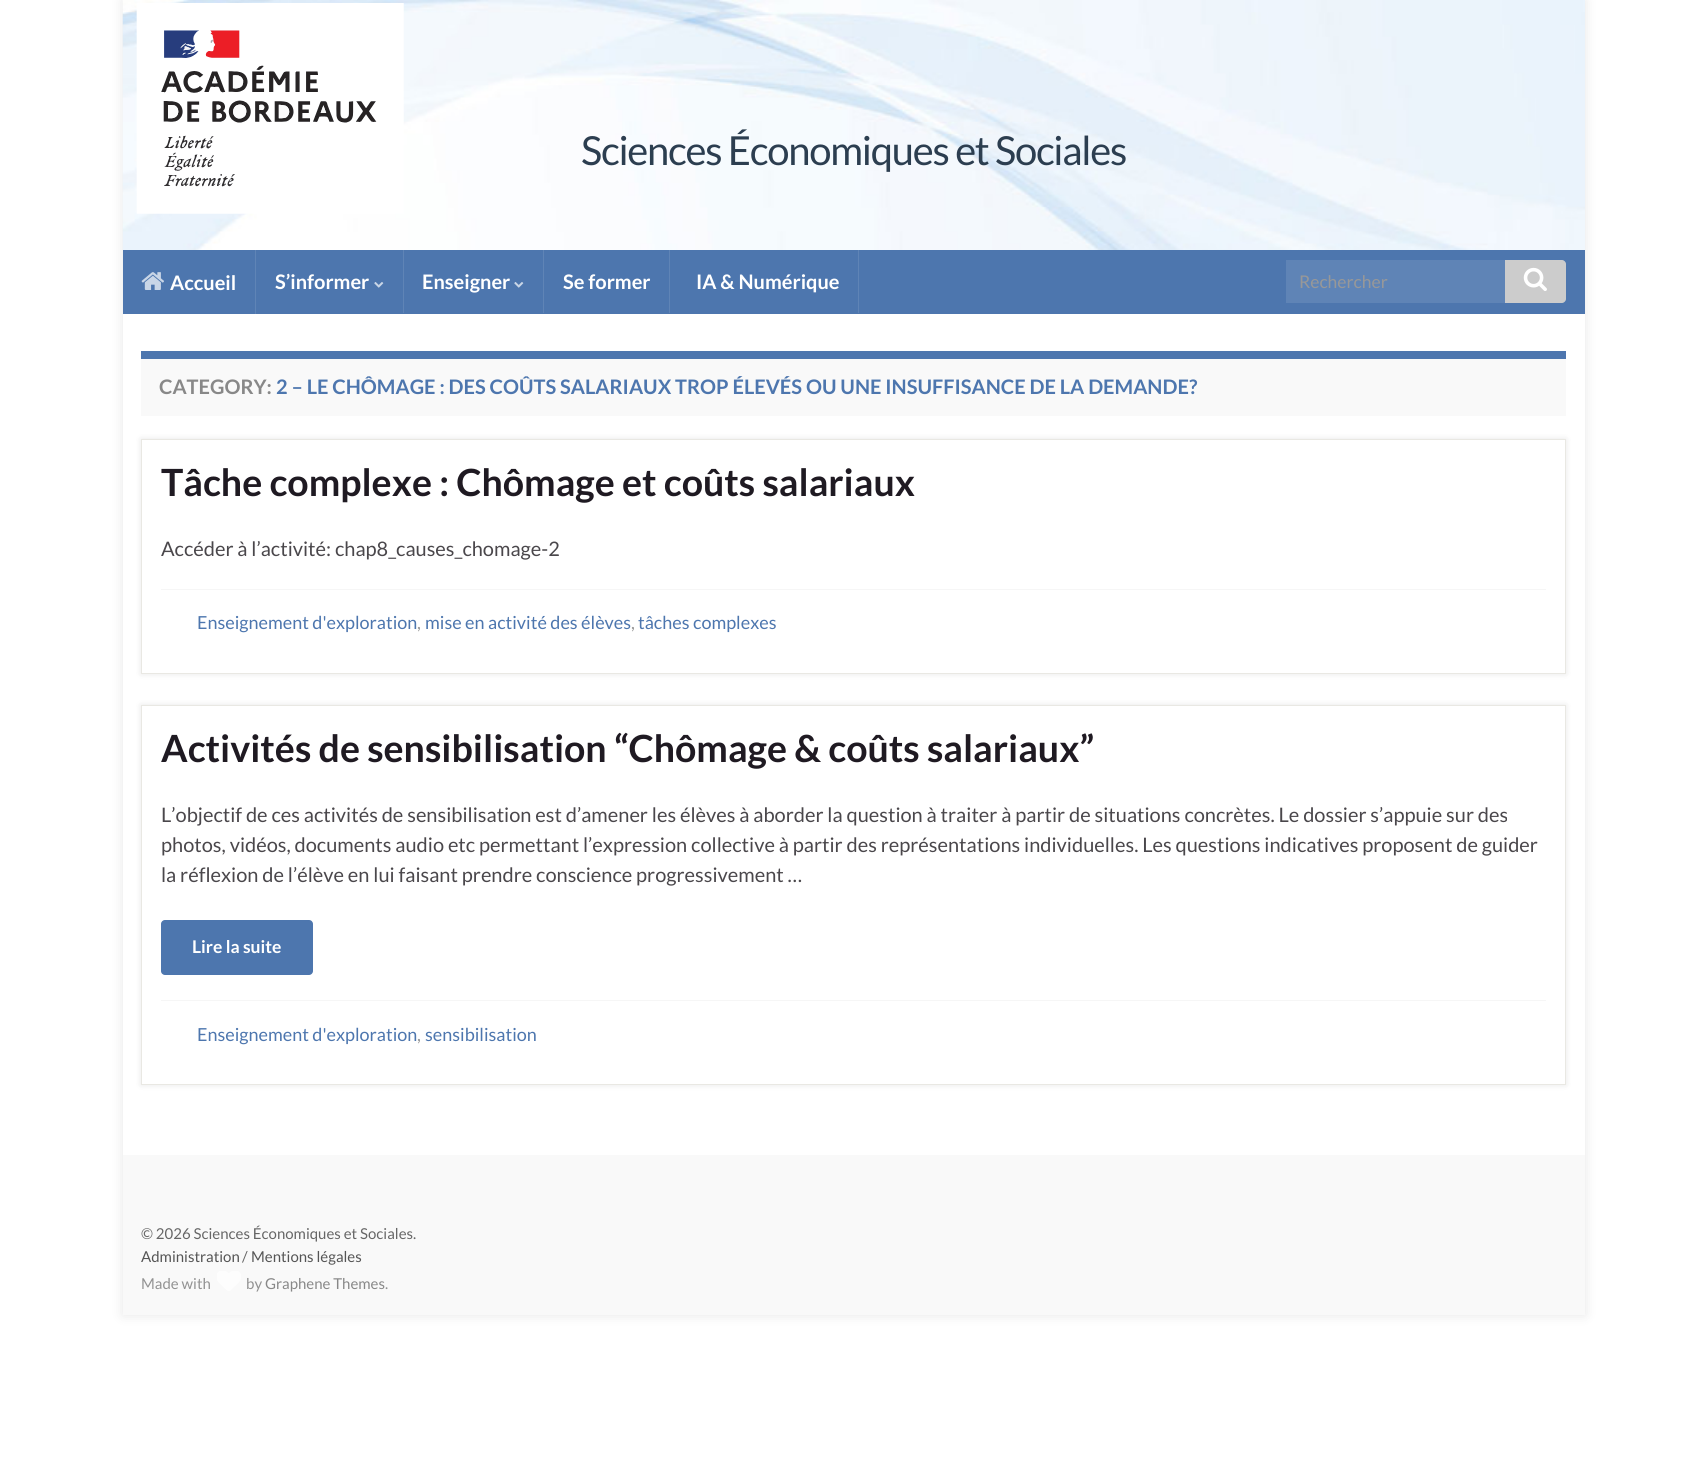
import math
import cairo


def write_spaced(ctx, x, y, s, letter, word):
	ctx.move_to(x, y)
	for ch in s:
		ctx.show_text(ch)
		ctx.rel_move_to(letter + word * (ch == ' '), 0)

def round_path(ctx, x, y, w, h, r):
	ctx.new_sub_path()
	for i, (u, v) in enumerate([(x + w - r, y + h - r), (x + r, y + h - r), (x + r, y + r), (x + w - r, y + r)]):
		ctx.arc(u, v, r, i * math.pi / 2, (i + 1) * math.pi / 2)
	ctx.close_path()

def blur_box(ctx, x, y, w, h, r, blur, alpha):
	ctx.push_group_with_content(cairo.CONTENT_ALPHA)
	ctx.set_operator(cairo.OPERATOR_SOURCE)
	for i in range(15, -16, -2):
		e = blur * i / 6
		if min(w, h) + 2 * e > 0:
			ctx.set_source_rgba(0, 0, 0, alpha * math.erfc((i - 1) / 8.5) / 2)
			round_path(ctx, x - e, y - e, w + 2 * e, h + 2 * e, max(0, min(r + e + blur * .6, min(w, h) / 2 + e)))
			ctx.fill()
	ctx.mask(ctx.pop_group())

def paste(ctx, path, x, y, w, h):
	ctx.save()
	ctx.set_source_surface(cairo.ImageSurface.create_from_png(path), x, y)
	ctx.rectangle(x, y, w, h)
	ctx.fill()
	ctx.restore()

def draw(ctx):
	ctx.set_source_rgb(1, 1, 1)
	ctx.paint()
	ctx.save()
	ctx.set_fill_rule(cairo.FILL_RULE_EVEN_ODD)
	ctx.new_path()
	ctx.move_to(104, 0)
	ctx.line_to(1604, 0)
	ctx.line_to(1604, 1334)
	ctx.line_to(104, 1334)
	ctx.close_path()
	ctx.move_to(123, 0)
	ctx.line_to(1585, 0)
	ctx.line_to(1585, 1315)
	ctx.line_to(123, 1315)
	ctx.close_path()
	ctx.clip()
	ctx.set_source_rgb(0, 0, 0)
	blur_box(ctx, 123, 0, 1462, 1315, 0, 6, 0.1)
	ctx.restore()
	paste(ctx, 'media/1.png', 122, 0, 1463, 250)
	paste(ctx, 'media/2.png', 136, 3, 268, 211)
	ctx.set_source_rgb(0.302, 0.463, 0.682)
	ctx.rectangle(123, 250, 1462, 64)
	ctx.fill()
	ctx.select_font_face('Lato')
	ctx.set_font_size(40)
	ctx.set_source_rgb(0.173, 0.243, 0.314)
	write_spaced(ctx, 581, 165, 'Sciences Économiques et Sociales', -1.25, 0)
	ctx.set_source_rgb(0.373, 0.518, 0.714)
	ctx.rectangle(255, 250, 1, 64)
	ctx.fill()
	paste(ctx, 'media/3.png', 141, 272, 23, 18)
	ctx.select_font_face('Lato', cairo.FONT_SLANT_NORMAL, cairo.FONT_WEIGHT_BOLD)
	ctx.set_font_size(20)
	ctx.set_source_rgb(1, 1, 1)
	ctx.move_to(170, 290)
	ctx.show_text('Accueil')
	ctx.set_source_rgb(0.373, 0.518, 0.714)
	ctx.rectangle(403, 250, 1, 63)
	ctx.fill()
	ctx.set_source_rgb(1, 1, 1)
	ctx.move_to(275, 289)
	ctx.show_text('S’informer')
	paste(ctx, 'media/4.png', 374, 282, 10, 6)
	ctx.set_source_rgb(0.373, 0.518, 0.714)
	ctx.rectangle(543, 250, 1, 63)
	ctx.fill()
	ctx.set_source_rgb(1, 1, 1)
	ctx.move_to(422, 289)
	ctx.show_text('Enseigner')
	paste(ctx, 'media/4.png', 514, 282, 10, 6)
	ctx.set_source_rgb(0.373, 0.518, 0.714)
	ctx.rectangle(669, 250, 1, 63)
	ctx.fill()
	ctx.set_source_rgb(1, 1, 1)
	ctx.move_to(563, 289)
	ctx.show_text('Se former')
	ctx.set_source_rgb(0.373, 0.518, 0.714)
	ctx.rectangle(858, 250, 1, 63)
	ctx.fill()
	ctx.set_source_rgb(1, 1, 1)
	ctx.move_to(696, 289)
	ctx.show_text('IA & Numérique')
	ctx.set_source_rgb(0.373, 0.518, 0.714)
	ctx.rectangle(1286, 260, 219, 43)
	ctx.fill()
	ctx.select_font_face('Lato')
	ctx.set_font_size(17.5)
	ctx.set_source_rgb(0.596, 0.596, 0.596)
	ctx.move_to(1299, 288)
	ctx.show_text('Rechercher')
	ctx.set_source_rgb(0.8, 0.8, 0.8)
	ctx.new_path()
	ctx.move_to(1505, 260)
	ctx.line_to(1562, 260)
	ctx.curve_to(1564, 260, 1566, 262, 1566, 264)
	ctx.line_to(1566, 299)
	ctx.curve_to(1566, 301, 1564, 303, 1562, 303)
	ctx.line_to(1505, 303)
	ctx.close_path()
	ctx.fill()
	paste(ctx, 'media/5.png', 1523, 267, 24, 24)
	ctx.set_source_rgb(0.976, 0.976, 0.976)
	ctx.rectangle(141, 359, 1425, 57)
	ctx.fill()
	ctx.set_source_rgb(0.302, 0.463, 0.682)
	ctx.rectangle(141, 351, 1425, 8)
	ctx.fill()
	ctx.select_font_face('Lato', cairo.FONT_SLANT_NORMAL, cairo.FONT_WEIGHT_BOLD)
	ctx.set_font_size(20)
	ctx.set_source_rgb(0.533, 0.533, 0.533)
	ctx.move_to(159, 394)
	ctx.show_text('CATEGORY:')
	ctx.set_source_rgb(0.302, 0.463, 0.682)
	ctx.move_to(276, 394)
	ctx.show_text('2 – LE CHÔMAGE : DES COÛTS SALARIAUX TROP ÉLEVÉS OU UNE INSUFFISANCE DE LA DEMANDE?')
	ctx.set_source_rgb(0, 0, 0)
	blur_box(ctx, 141, 439, 1425, 235, 0, 3, 0.1)
	ctx.set_source_rgb(1, 1, 1)
	ctx.rectangle(141.5, 439.5, 1424, 234)
	ctx.fill_preserve()
	ctx.set_source_rgb(0.914, 0.91, 0.89)
	ctx.set_line_width(1)
	ctx.stroke()
	ctx.set_font_size(37.5)
	ctx.set_source_rgb(0.122, 0.102, 0.133)
	ctx.move_to(161, 496)
	ctx.show_text('Tâche complexe : Chômage et coûts salariaux')
	ctx.select_font_face('Lato')
	ctx.set_font_size(20)
	ctx.set_source_rgb(0.29, 0.278, 0.294)
	ctx.move_to(161, 556)
	ctx.show_text('Accéder à l’activité: chap8_causes_chomage-2')
	ctx.set_source_rgb(0.961, 0.961, 0.961)
	ctx.rectangle(161, 589, 1385, 1)
	ctx.fill()
	ctx.set_font_size(18)
	ctx.set_source_rgb(0.302, 0.463, 0.682)
	ctx.move_to(197, 629)
	ctx.show_text('Enseignement d\'exploration')
	ctx.set_source_rgb(0.596, 0.596, 0.596)
	ctx.move_to(417, 629)
	ctx.show_text(',')
	ctx.set_source_rgb(0.302, 0.463, 0.682)
	ctx.move_to(425, 629)
	ctx.show_text('mise en activité des élèves')
	ctx.set_source_rgb(0.596, 0.596, 0.596)
	ctx.move_to(631, 629)
	ctx.show_text(',')
	ctx.set_source_rgb(0.302, 0.463, 0.682)
	ctx.move_to(638, 629)
	ctx.show_text('tâches complexes')
	ctx.set_source_rgb(0, 0, 0)
	blur_box(ctx, 141, 705, 1425, 380, 0, 3, 0.1)
	ctx.set_source_rgb(1, 1, 1)
	ctx.rectangle(141.5, 705.5, 1424, 379)
	ctx.fill_preserve()
	ctx.set_source_rgb(0.914, 0.91, 0.89)
	ctx.stroke()
	ctx.select_font_face('Lato', cairo.FONT_SLANT_NORMAL, cairo.FONT_WEIGHT_BOLD)
	ctx.set_font_size(37.5)
	ctx.set_source_rgb(0.122, 0.102, 0.133)
	ctx.move_to(161, 762)
	ctx.show_text('Activités de sensibilisation “Chômage & coûts salariaux”')
	ctx.select_font_face('Lato')
	ctx.set_font_size(20)
	ctx.set_source_rgb(0.29, 0.278, 0.294)
	for x, y, s in [
		(161, 822, 'L’objectif de ces activités de sensibilisation est d’amener les élèves à aborder la question à traiter à partir de situations concrètes. Le dossier s’appuie sur des'),
		(161, 852, 'photos, vidéos, documents audio etc permettant l’expression collective à partir des représentations individuelles. Les questions indicatives proposent de guider'),
		(161, 882, 'la réflexion de l’élève en lui faisant prendre conscience progressivement …'),
	]:
		ctx.move_to(x, y)
		ctx.show_text(s)
	ctx.set_source_rgb(0.302, 0.463, 0.682)
	round_path(ctx, 161, 920, 152, 55, 4)
	ctx.fill()
	ctx.select_font_face('Lato', cairo.FONT_SLANT_NORMAL, cairo.FONT_WEIGHT_BOLD)
	ctx.set_font_size(17.5)
	ctx.set_source_rgb(1, 1, 1)
	ctx.move_to(192, 953)
	ctx.show_text('Lire la suite')
	ctx.set_source_rgb(0.961, 0.961, 0.961)
	ctx.rectangle(161, 1000, 1385, 1)
	ctx.fill()
	ctx.select_font_face('Lato')
	ctx.set_font_size(18)
	ctx.set_source_rgb(0.302, 0.463, 0.682)
	ctx.move_to(197, 1041)
	ctx.show_text('Enseignement d\'exploration')
	ctx.set_source_rgb(0.596, 0.596, 0.596)
	ctx.move_to(417, 1041)
	ctx.show_text(',')
	ctx.set_source_rgb(0.302, 0.463, 0.682)
	ctx.move_to(425, 1041)
	ctx.show_text('sensibilisation')
	ctx.set_source_rgb(0.976, 0.976, 0.976)
	ctx.rectangle(123, 1155, 1462, 160)
	ctx.fill()
	ctx.set_font_size(15)
	ctx.set_source_rgb(0.4, 0.4, 0.4)
	ctx.move_to(141, 1239)
	ctx.show_text('© 2026 Sciences Économiques et Sociales.')
	ctx.set_source_rgb(0.333, 0.333, 0.333)
	ctx.move_to(141, 1262)
	ctx.show_text('Administration')
	ctx.set_source_rgb(0.4, 0.4, 0.4)
	ctx.move_to(242, 1262)
	ctx.show_text('/')
	ctx.set_source_rgb(0.333, 0.333, 0.333)
	ctx.move_to(251, 1262)
	ctx.show_text('Mentions légales')
	ctx.set_source_rgb(0.573, 0.573, 0.573)
	ctx.move_to(141, 1289)
	ctx.show_text('Made with')
	paste(ctx, 'media/6.png', 217, 1271, 24, 20)
	ctx.move_to(246, 1289)
	ctx.show_text('by')
	ctx.set_source_rgb(0.533, 0.533, 0.533)
	ctx.move_to(265, 1289)
	ctx.show_text('Graphene Themes')
	ctx.set_source_rgb(0.573, 0.573, 0.573)
	ctx.move_to(385, 1289)
	ctx.show_text('.')


surface = cairo.ImageSurface(cairo.FORMAT_RGB24, 1706, 1479)
ctx = cairo.Context(surface)
options = cairo.FontOptions()
options.set_hint_metrics(cairo.HINT_METRICS_OFF)
options.set_hint_style(cairo.HINT_STYLE_NONE)
ctx.set_font_options(options)
ctx.set_miter_limit(4)
draw(ctx)
surface.write_to_png('image.png')
